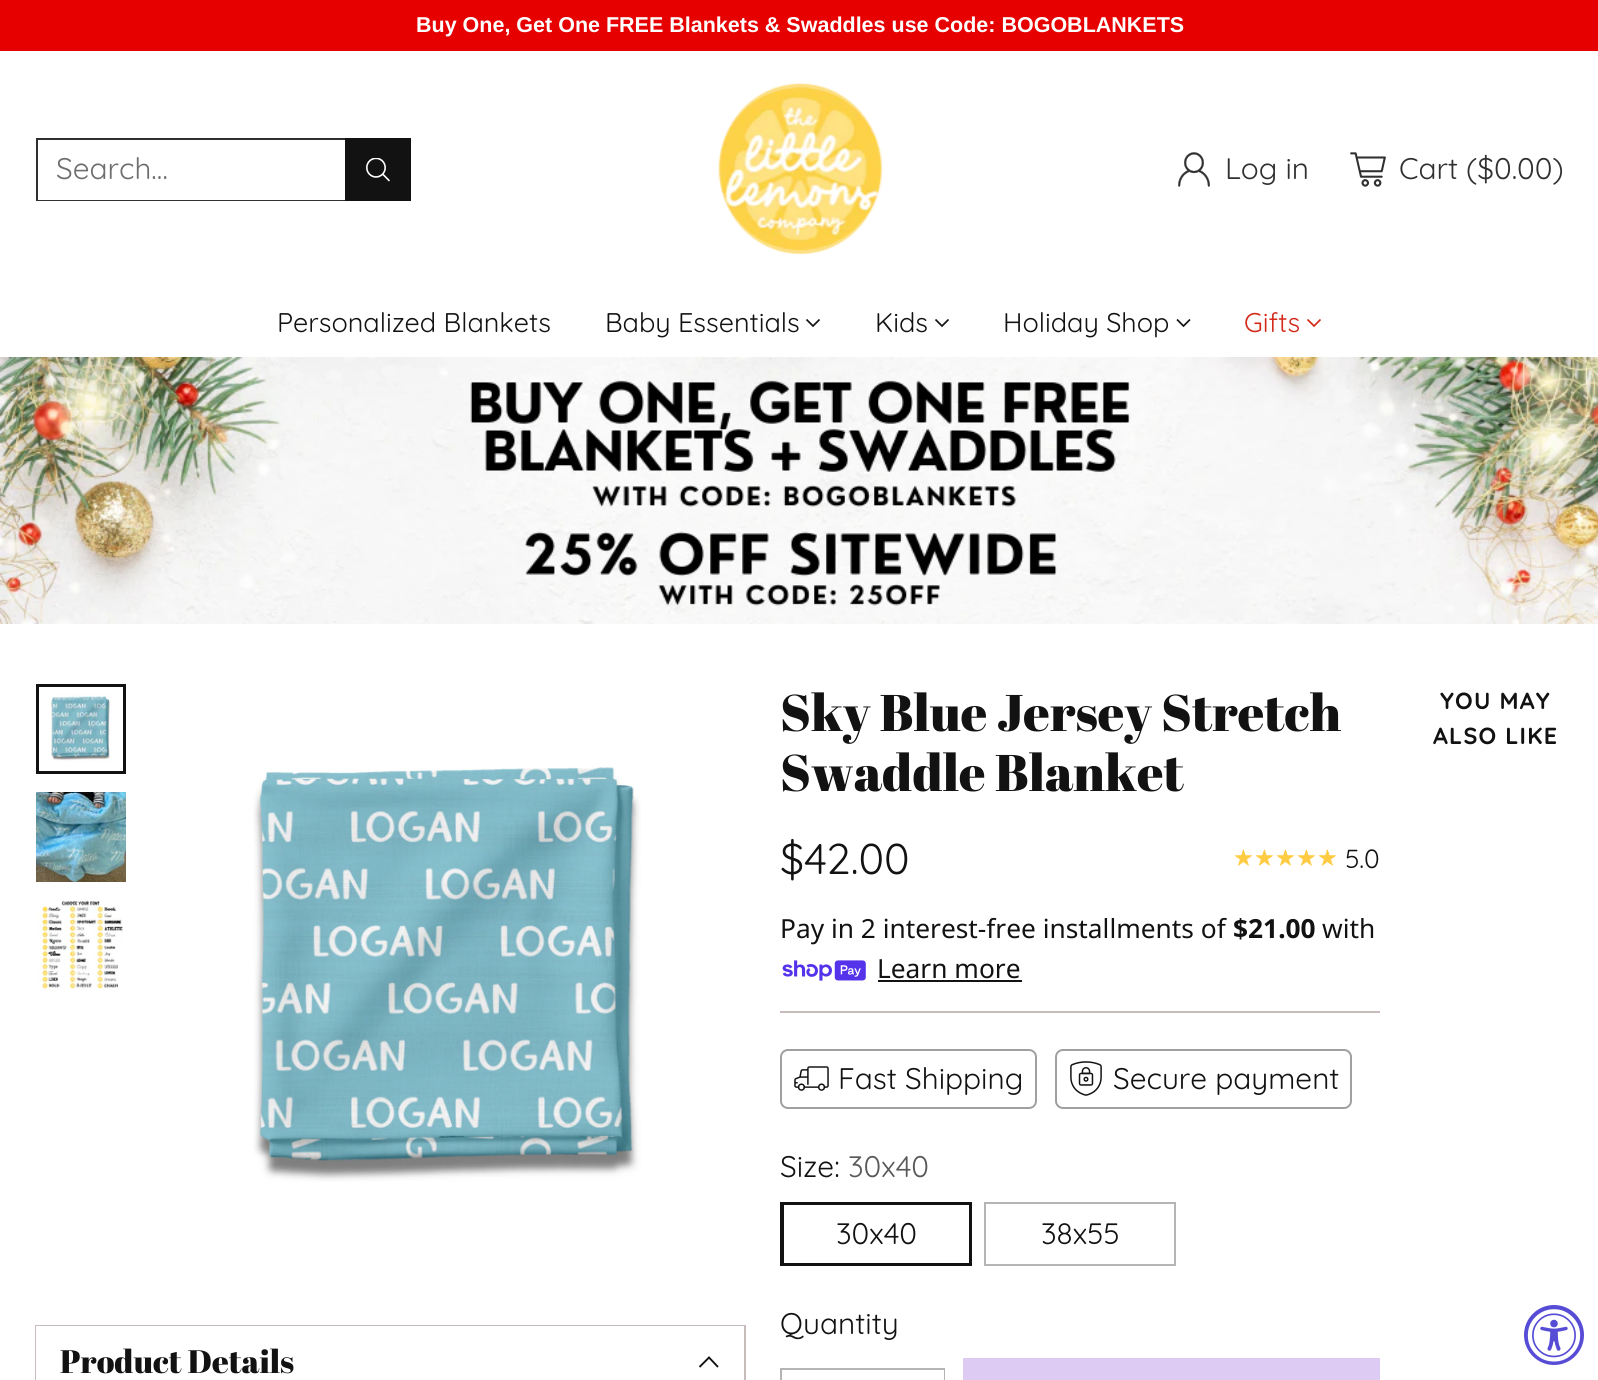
import math
import cairo


def write_spaced(ctx, x, y, s, letter, word):
	ctx.move_to(x, y)
	for ch in s:
		ctx.show_text(ch)
		ctx.rel_move_to(letter + word * (ch == ' '), 0)

def round_path(ctx, x, y, w, h, r):
	ctx.new_sub_path()
	for i, (u, v) in enumerate([(x + w - r, y + h - r), (x + r, y + h - r), (x + r, y + r), (x + w - r, y + r)]):
		ctx.arc(u, v, r, i * math.pi / 2, (i + 1) * math.pi / 2)
	ctx.close_path()

def paste(ctx, path, x, y, w, h):
	ctx.save()
	ctx.set_source_surface(cairo.ImageSurface.create_from_png(path), x, y)
	ctx.rectangle(x, y, w, h)
	ctx.fill()
	ctx.restore()

def draw(ctx):
	ctx.set_source_rgb(1, 1, 1)
	ctx.paint()
	ctx.set_source_rgb(0.906, 0, 0)
	ctx.rectangle(0, 0, 1598, 51)
	ctx.fill()
	ctx.select_font_face('Liberation Sans', cairo.FONT_SLANT_NORMAL, cairo.FONT_WEIGHT_BOLD)
	ctx.set_font_size(21.5)
	ctx.set_source_rgb(1, 1, 1)
	ctx.move_to(416, 32)
	ctx.show_text('Buy One, Get One FREE Blankets & Swaddles use Code: BOGOBLANKETS')
	ctx.rectangle(37, 139, 373, 61)
	ctx.set_source_rgb(0.188, 0.188, 0.188)
	ctx.stroke()
	ctx.set_source_rgb(1, 1, 1)
	ctx.rectangle(38, 199, 307, 1)
	ctx.fill()
	ctx.select_font_face('Quicksand')
	ctx.set_font_size(29.75)
	ctx.set_source_rgb(0.431, 0.431, 0.431)
	ctx.move_to(56, 179)
	ctx.show_text('Search…')
	ctx.set_source_rgb(0.071, 0.071, 0.071)
	ctx.rectangle(345, 138, 66, 63)
	ctx.fill()
	paste(ctx, 'media/1.png', 366, 158, 24, 24)
	paste(ctx, 'media/2.png', 718, 83, 165, 172)
	paste(ctx, 'media/3.png', 1178, 152, 32, 35)
	ctx.set_source_rgb(0.188, 0.188, 0.188)
	ctx.move_to(1225, 179)
	ctx.show_text('Log in')
	paste(ctx, 'media/4.png', 1350, 152, 36, 35)
	ctx.move_to(1399, 179)
	ctx.show_text('Cart ($0.00)')
	ctx.set_font_size(27)
	ctx.set_source_rgb(0.071, 0.071, 0.071)
	ctx.move_to(277, 332)
	ctx.show_text('Personalized Blankets')
	ctx.move_to(605, 332)
	ctx.show_text('Baby Essentials')
	ctx.new_path()
	ctx.move_to(806.5, 319.5)
	ctx.line_to(813, 326)
	ctx.line_to(819.5, 319.5)
	ctx.set_line_width(1.7)
	ctx.stroke()
	ctx.move_to(875, 332)
	ctx.show_text('Kids')
	ctx.new_path()
	ctx.move_to(935.5, 319.5)
	ctx.line_to(942, 326)
	ctx.line_to(948.5, 319.5)
	ctx.stroke()
	ctx.move_to(1003, 332)
	ctx.show_text('Holiday Shop')
	ctx.new_path()
	ctx.move_to(1177, 319.5)
	ctx.line_to(1183.5, 326)
	ctx.line_to(1190, 319.5)
	ctx.stroke()
	ctx.set_source_rgb(0.824, 0.161, 0.098)
	ctx.move_to(1244, 332)
	ctx.show_text('Gifts')
	ctx.new_path()
	ctx.move_to(1307.5, 319.5)
	ctx.line_to(1314, 326)
	ctx.line_to(1320.5, 319.5)
	ctx.stroke()
	paste(ctx, 'media/5.png', 0, 357, 1598, 267)
	ctx.set_source_rgb(0.776, 0.737, 0.725)
	ctx.rectangle(780, 1011, 600, 2)
	ctx.fill()
	ctx.select_font_face('Abril Fatface')
	ctx.set_font_size(51.5)
	ctx.set_source_rgb(0.071, 0.071, 0.071)
	ctx.move_to(780, 731)
	ctx.show_text('Sky Blue Jersey Stretch')
	ctx.move_to(780, 791)
	ctx.show_text('Swaddle Blanket')
	ctx.select_font_face('Quicksand')
	ctx.set_font_size(43)
	ctx.move_to(780, 874)
	ctx.show_text('$42.00')
	paste(ctx, 'media/6.png', 1235, 849, 17, 17)
	paste(ctx, 'media/6.png', 1256, 849, 17, 17)
	paste(ctx, 'media/6.png', 1277, 849, 17, 17)
	paste(ctx, 'media/6.png', 1298, 849, 17, 17)
	paste(ctx, 'media/6.png', 1319, 849, 17, 17)
	ctx.set_font_size(26.3)
	ctx.move_to(1345, 868)
	ctx.show_text('5.0')
	ctx.select_font_face('Noto Sans')
	ctx.move_to(780, 938)
	ctx.show_text('Pay in 2 interest-free installments of')
	ctx.select_font_face('Noto Sans', cairo.FONT_SLANT_NORMAL, cairo.FONT_WEIGHT_BOLD)
	ctx.move_to(1233, 938)
	ctx.show_text('$21.00')
	ctx.select_font_face('Noto Sans')
	ctx.move_to(1322, 938)
	ctx.show_text('with')
	paste(ctx, 'media/7.png', 782, 960, 84, 21)
	ctx.move_to(877, 978)
	ctx.show_text('Learn more')
	ctx.rectangle(878, 980, 144, 2)
	ctx.fill()
	round_path(ctx, 781, 1050, 255, 58, 7)
	ctx.set_source_rgb(0.627, 0.627, 0.627)
	ctx.set_line_width(2)
	ctx.stroke()
	paste(ctx, 'media/8.png', 794, 1066, 35, 25)
	ctx.select_font_face('Quicksand')
	ctx.set_font_size(29.75)
	ctx.set_source_rgb(0.071, 0.071, 0.071)
	ctx.move_to(838, 1089)
	ctx.show_text('Fast Shipping')
	round_path(ctx, 1056, 1050, 295, 58, 7)
	ctx.set_source_rgb(0.627, 0.627, 0.627)
	ctx.stroke()
	paste(ctx, 'media/9.png', 1070, 1061, 32, 35)
	ctx.set_source_rgb(0.071, 0.071, 0.071)
	ctx.move_to(1113, 1089)
	ctx.show_text('Secure payment')
	ctx.move_to(780, 1177)
	ctx.show_text('Size:')
	ctx.set_source_rgb(0.349, 0.349, 0.349)
	ctx.move_to(848, 1177)
	ctx.show_text('30x40')
	ctx.rectangle(783, 1204, 187, 60)
	ctx.set_source_rgb(0.071, 0.071, 0.071)
	ctx.stroke()
	ctx.rectangle(781, 1203, 190, 62)
	ctx.stroke()
	ctx.move_to(836, 1244)
	ctx.show_text('30x40')
	ctx.rectangle(985, 1203, 190, 62)
	ctx.set_source_rgb(0.706, 0.706, 0.706)
	ctx.stroke()
	ctx.set_source_rgb(0.071, 0.071, 0.071)
	ctx.move_to(1041, 1244)
	ctx.show_text('38x55')
	ctx.move_to(780, 1334)
	ctx.show_text('Quantity')
	ctx.rectangle(781, 1369, 163, 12)
	ctx.set_source_rgb(0.706, 0.706, 0.706)
	ctx.stroke()
	ctx.set_source_rgb(1, 1, 1)
	ctx.rectangle(943, 1370, 1, 10)
	ctx.fill()
	ctx.set_source_rgb(0.871, 0.796, 0.957)
	ctx.rectangle(963, 1358, 417, 22)
	ctx.fill()
	ctx.select_font_face('Quicksand', cairo.FONT_SLANT_NORMAL, cairo.FONT_WEIGHT_BOLD)
	ctx.set_font_size(23.25)
	ctx.set_source_rgb(0.071, 0.071, 0.071)
	write_spaced(ctx, 1440, 709, 'YOU MAY', 1.25, 0)
	write_spaced(ctx, 1433, 744, 'ALSO LIKE', 1.25, 0)
	paste(ctx, 'media/10.png', 50, 693, 62, 69)
	ctx.rectangle(37.5, 685.5, 87, 87)
	ctx.set_line_width(3)
	ctx.stroke()
	paste(ctx, 'media/11.png', 36, 792, 90, 90)
	paste(ctx, 'media/12.png', 36, 900, 87, 90)
	paste(ctx, 'media/13.png', 253, 767, 388, 415)
	ctx.rectangle(36, 1326, 709, 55)
	ctx.set_source_rgb(0.776, 0.737, 0.725)
	ctx.set_line_width(2)
	ctx.stroke()
	ctx.set_source_rgb(1, 1, 1)
	ctx.rectangle(36, 1326, 708, 54)
	ctx.fill()
	ctx.select_font_face('Abril Fatface')
	ctx.set_font_size(32.5)
	ctx.set_source_rgb(0.071, 0.071, 0.071)
	ctx.move_to(60, 1373)
	ctx.show_text('Product Details')
	ctx.new_path()
	ctx.move_to(699.5, 1367)
	ctx.line_to(709, 1357.5)
	ctx.line_to(718, 1367)
	ctx.set_line_width(1.9)
	ctx.stroke()
	ctx.set_source_rgb(0.341, 0.298, 0.835)
	ctx.arc(1554, 1335, 30, 0, 2 * math.pi)
	ctx.fill()
	paste(ctx, 'media/14.png', 1527, 1309, 54, 53)


surface = cairo.ImageSurface(cairo.FORMAT_RGB24, 1598, 1380)
ctx = cairo.Context(surface)
options = cairo.FontOptions()
options.set_hint_metrics(cairo.HINT_METRICS_OFF)
options.set_hint_style(cairo.HINT_STYLE_NONE)
ctx.set_font_options(options)
ctx.set_miter_limit(4)
draw(ctx)
surface.write_to_png('image.png')
